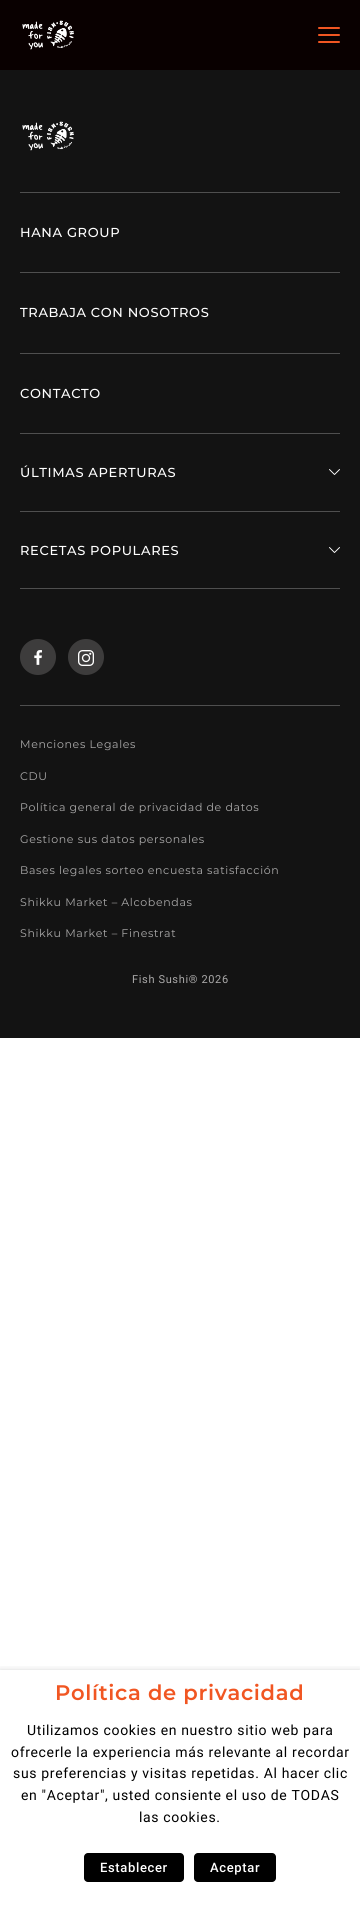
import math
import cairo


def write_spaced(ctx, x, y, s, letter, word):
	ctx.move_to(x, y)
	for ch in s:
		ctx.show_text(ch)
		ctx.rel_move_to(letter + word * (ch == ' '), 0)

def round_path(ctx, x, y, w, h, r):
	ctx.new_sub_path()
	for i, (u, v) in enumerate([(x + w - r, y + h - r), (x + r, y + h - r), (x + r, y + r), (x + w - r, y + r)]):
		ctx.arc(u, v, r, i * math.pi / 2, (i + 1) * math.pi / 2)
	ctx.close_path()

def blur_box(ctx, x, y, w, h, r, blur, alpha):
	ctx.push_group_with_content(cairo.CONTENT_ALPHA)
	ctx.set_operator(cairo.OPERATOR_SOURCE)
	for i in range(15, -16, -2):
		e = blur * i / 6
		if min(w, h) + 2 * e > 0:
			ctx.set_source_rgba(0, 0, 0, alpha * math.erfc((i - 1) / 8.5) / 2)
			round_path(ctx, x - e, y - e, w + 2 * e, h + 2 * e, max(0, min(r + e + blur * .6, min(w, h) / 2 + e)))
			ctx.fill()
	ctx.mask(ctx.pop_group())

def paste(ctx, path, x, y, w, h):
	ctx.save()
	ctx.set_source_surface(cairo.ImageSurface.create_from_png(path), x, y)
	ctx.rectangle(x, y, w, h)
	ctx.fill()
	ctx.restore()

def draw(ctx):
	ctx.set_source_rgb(1, 1, 1)
	ctx.paint()
	ctx.set_source_rgb(0.039, 0, 0)
	ctx.rectangle(0, 0, 360, 70)
	ctx.fill()
	paste(ctx, 'media/1.png', 22, 20, 52, 30)
	ctx.set_source_rgb(0.945, 0.337, 0.133)
	round_path(ctx, 318, 34, 22, 2, 1)
	ctx.fill()
	round_path(ctx, 318, 27, 22, 2, 1)
	ctx.fill()
	round_path(ctx, 318, 41, 22, 2, 1)
	ctx.fill()
	ctx.set_source_rgb(0.078, 0.078, 0.078)
	ctx.rectangle(0, 70, 360, 968)
	ctx.fill()
	paste(ctx, 'media/2.png', 22, 121, 52, 30)
	ctx.set_source_rgb(0.31, 0.31, 0.31)
	ctx.rectangle(20, 192, 320, 1)
	ctx.fill()
	ctx.rectangle(20, 272, 320, 1)
	ctx.fill()
	ctx.select_font_face('Montserrat Medium')
	ctx.set_font_size(13)
	ctx.set_source_rgb(1, 1, 1)
	write_spaced(ctx, 20, 237, 'HANA GROUP', 0.65, 0)
	ctx.set_source_rgb(0.31, 0.31, 0.31)
	ctx.rectangle(20, 353, 320, 1)
	ctx.fill()
	ctx.set_source_rgb(1, 1, 1)
	write_spaced(ctx, 20, 317, 'TRABAJA CON NOSOTROS', 0.65, 0)
	ctx.set_source_rgb(0.31, 0.31, 0.31)
	ctx.rectangle(20, 433, 320, 1)
	ctx.fill()
	ctx.set_source_rgb(1, 1, 1)
	write_spaced(ctx, 20, 398, 'CONTACTO', 0.65, 0)
	ctx.set_source_rgb(0.31, 0.31, 0.31)
	ctx.rectangle(20, 511, 320, 1)
	ctx.fill()
	ctx.set_source_rgb(1, 1, 1)
	write_spaced(ctx, 20, 477, 'ÚLTIMAS APERTURAS', 0.65, 0)
	paste(ctx, 'media/3.png', 329, 469, 11, 6)
	ctx.set_source_rgb(0.31, 0.31, 0.31)
	ctx.rectangle(20, 588, 320, 1)
	ctx.fill()
	ctx.set_source_rgb(1, 1, 1)
	write_spaced(ctx, 20, 555, 'RECETAS POPULARES', 0.65, 0)
	paste(ctx, 'media/3.png', 329, 547, 11, 6)
	ctx.set_source_rgb(0.31, 0.31, 0.31)
	ctx.rectangle(20, 705, 320, 1)
	ctx.fill()
	ctx.set_source_rgb(0.239, 0.235, 0.235)
	ctx.arc(38, 657, 18, 0, 2 * math.pi)
	ctx.fill()
	paste(ctx, 'media/4.png', 34, 650, 8, 15)
	ctx.arc(86, 657, 18, 0, 2 * math.pi)
	ctx.fill()
	paste(ctx, 'media/5.png', 78, 650, 16, 16)
	ctx.select_font_face('Montserrat')
	ctx.set_font_size(11)
	ctx.set_source_rgb(0.667, 0.663, 0.663)
	for x, y, s in [
		(20, 748, 'Menciones Legales'),
		(20, 780, 'CDU'),
		(20, 811, 'Política general de privacidad de datos'),
		(20, 843, 'Gestione sus datos personales'),
		(20, 874, 'Bases legales sorteo encuesta satisfacción'),
		(20, 906, 'Shikku Market – Alcobendas'),
		(20, 937, 'Shikku Market – Finestrat'),
	]:
		write_spaced(ctx, x, y, s, 0.65, 0)
	ctx.select_font_face('Roboto')
	write_spaced(ctx, 132, 983, 'Fish Sushi® 2026', 0.65, 0)
	ctx.save()
	ctx.rectangle(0, 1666, 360, 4)
	ctx.clip()
	ctx.set_source_rgb(0, 0, 0)
	blur_box(ctx, 0, 1675, 360, 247, 0, 5, 0.5)
	ctx.restore()
	ctx.select_font_face('Montserrat SemiBold')
	ctx.set_font_size(21.1)
	ctx.set_source_rgb(0.945, 0.337, 0.133)
	write_spaced(ctx, 55, 1700, 'Política de privacidad', 0.65, 0)
	ctx.select_font_face('Roboto')
	ctx.set_font_size(14)
	ctx.set_source_rgb(0, 0, 0)
	for x, y, s in [
		(27, 1735, 'Utilizamos cookies en nuestro sitio web para'),
		(11, 1757, 'ofrecerle la experiencia más relevante al recordar'),
		(13, 1778, 'sus preferencias y visitas repetidas. Al hacer clic'),
		(21, 1800, 'en "Aceptar", usted consiente el uso de TODAS'),
		(139, 1822, 'las cookies.'),
	]:
		write_spaced(ctx, x, y, s, 0.65, 0)
	round_path(ctx, 84, 1853, 100, 29, 4)
	ctx.fill()
	ctx.select_font_face('Roboto Medium')
	ctx.set_font_size(13)
	ctx.set_source_rgb(1, 1, 1)
	write_spaced(ctx, 100, 1872, 'Establecer', 0.65, 0)
	ctx.set_source_rgb(0, 0, 0)
	round_path(ctx, 194, 1853, 82, 29, 4)
	ctx.fill()
	ctx.set_source_rgb(1, 1, 1)
	write_spaced(ctx, 210, 1872, 'Aceptar', 0.65, 0)


surface = cairo.ImageSurface(cairo.FORMAT_RGB24, 360, 1917)
ctx = cairo.Context(surface)
options = cairo.FontOptions()
options.set_hint_metrics(cairo.HINT_METRICS_OFF)
options.set_hint_style(cairo.HINT_STYLE_NONE)
ctx.set_font_options(options)
ctx.set_miter_limit(4)
draw(ctx)
surface.write_to_png('image.png')
